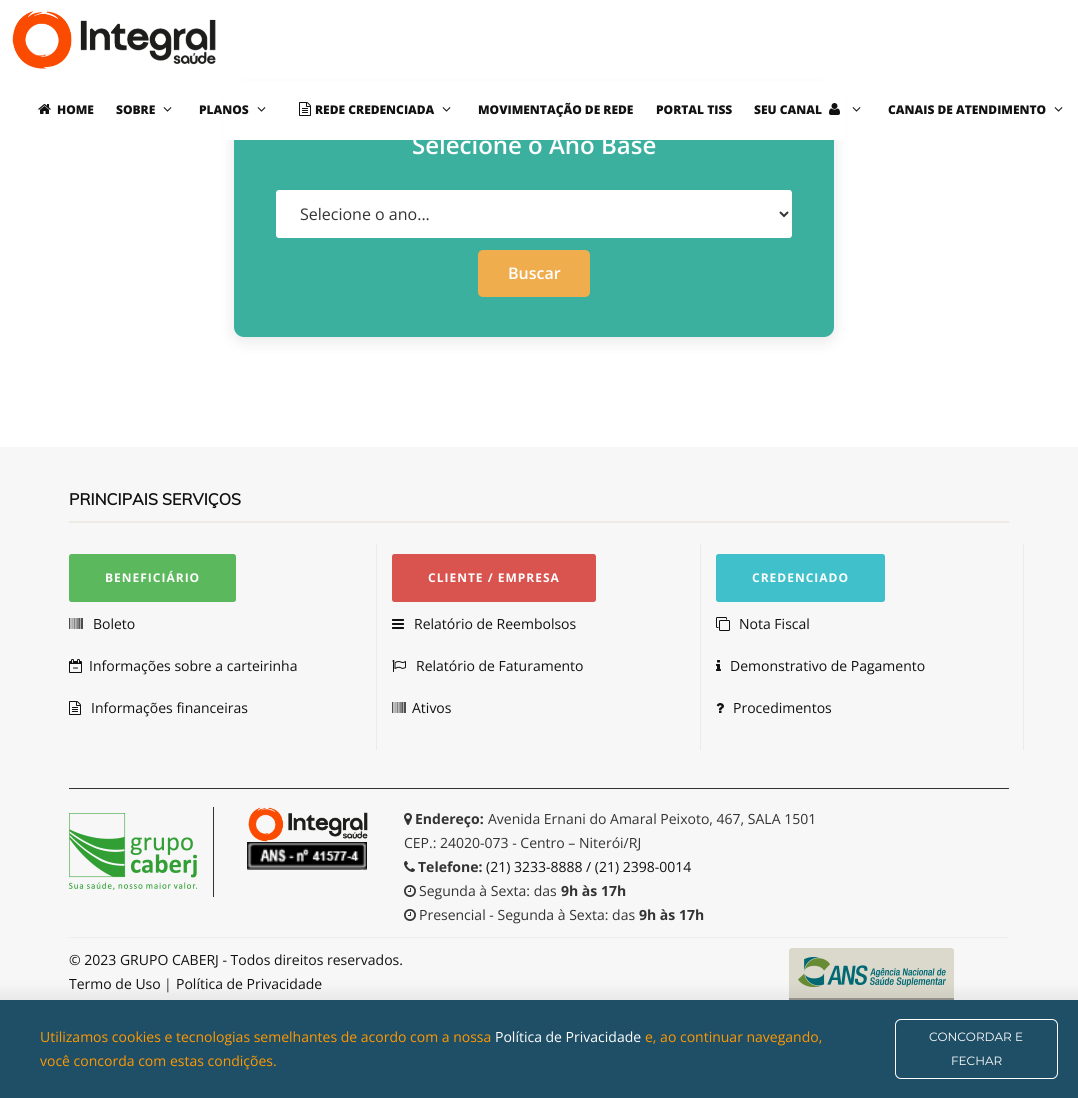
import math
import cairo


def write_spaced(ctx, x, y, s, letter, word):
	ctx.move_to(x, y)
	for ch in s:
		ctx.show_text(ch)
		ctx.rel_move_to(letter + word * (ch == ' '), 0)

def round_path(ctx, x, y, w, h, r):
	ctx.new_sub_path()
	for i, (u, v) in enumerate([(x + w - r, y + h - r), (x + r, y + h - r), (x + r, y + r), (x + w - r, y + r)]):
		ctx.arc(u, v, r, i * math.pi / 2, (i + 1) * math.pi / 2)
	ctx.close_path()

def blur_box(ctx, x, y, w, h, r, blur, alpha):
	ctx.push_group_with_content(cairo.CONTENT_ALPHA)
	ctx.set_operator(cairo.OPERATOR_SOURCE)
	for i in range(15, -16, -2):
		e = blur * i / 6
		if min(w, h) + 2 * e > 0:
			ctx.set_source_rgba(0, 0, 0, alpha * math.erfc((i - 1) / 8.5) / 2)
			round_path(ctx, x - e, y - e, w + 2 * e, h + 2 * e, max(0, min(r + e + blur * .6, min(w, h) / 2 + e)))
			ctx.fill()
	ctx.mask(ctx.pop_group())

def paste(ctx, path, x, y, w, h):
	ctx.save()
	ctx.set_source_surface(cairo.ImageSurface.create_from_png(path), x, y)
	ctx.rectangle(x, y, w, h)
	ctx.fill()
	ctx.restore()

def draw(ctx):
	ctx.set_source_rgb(1, 1, 1)
	ctx.paint()
	ctx.set_source_rgb(0, 0, 0)
	blur_box(ctx, 234, 91, 600, 250, 10, 7.5, 0.1)
	paste(ctx, 'media/1.png', 12, 11, 204, 58)
	ctx.set_source_rgb(0.235, 0.69, 0.624)
	round_path(ctx, 234, 87, 600, 250, 10)
	ctx.fill()
	ctx.set_source_rgb(1, 1, 1)
	ctx.rectangle(224, 81, 620, 59)
	ctx.fill()
	paste(ctx, 'media/2.png', 38, 104, 13, 10)
	ctx.select_font_face('Open Sans ExtraBold')
	ctx.set_font_size(12)
	ctx.set_source_rgb(0.067, 0.067, 0.067)
	ctx.move_to(57, 114)
	ctx.show_text('HOME')
	ctx.move_to(116, 114)
	ctx.show_text('SOBRE')
	paste(ctx, 'media/3.png', 163, 107, 9, 5)
	ctx.move_to(199, 114)
	ctx.show_text('PLANOS')
	paste(ctx, 'media/3.png', 257, 107, 9, 5)
	paste(ctx, 'media/4.png', 299, 102, 12, 14)
	ctx.move_to(315, 114)
	ctx.show_text('REDE CREDENCIADA')
	paste(ctx, 'media/3.png', 442, 107, 9, 5)
	for x, y, s in [
		(478, 114, 'MOVIMENTAÇÃO DE REDE'),
		(656, 114, 'PORTAL TISS'),
		(754, 114, 'SEU CANAL'),
	]:
		ctx.move_to(x, y)
		ctx.show_text(s)
	paste(ctx, 'media/5.png', 829, 103, 11, 12)
	paste(ctx, 'media/3.png', 852, 107, 9, 5)
	ctx.move_to(888, 114)
	ctx.show_text('CANAIS DE ATENDIMENTO')
	paste(ctx, 'media/3.png', 1054, 107, 9, 5)
	ctx.select_font_face('Open Sans SemiBold')
	ctx.set_font_size(24)
	ctx.set_source_rgb(1, 1, 1)
	ctx.move_to(412, 154)
	ctx.show_text('Selecione o Ano Base')
	round_path(ctx, 275, 189, 518, 50, 4)
	ctx.fill_preserve()
	ctx.set_source_rgb(0.235, 0.69, 0.624)
	ctx.stroke()
	ctx.new_path()
	ctx.move_to(780, 212)
	ctx.line_to(784, 216)
	ctx.line_to(788, 212)
	ctx.set_source_rgb(0.2, 0.2, 0.2)
	ctx.stroke()
	ctx.select_font_face('Open Sans')
	ctx.set_font_size(16)
	ctx.move_to(300, 220)
	ctx.show_text('Selecione o ano...')
	ctx.set_source_rgb(0.941, 0.678, 0.306)
	round_path(ctx, 478, 250, 112, 47, 5)
	ctx.fill()
	ctx.select_font_face('Open Sans SemiBold')
	ctx.set_source_rgb(1, 1, 1)
	ctx.move_to(508, 279)
	ctx.show_text('Buscar')
	ctx.set_source_rgb(0.965, 0.965, 0.965)
	ctx.rectangle(0, 447, 1078, 553)
	ctx.fill()
	ctx.set_source_rgb(0.929, 0.918, 0.89)
	ctx.rectangle(69, 521, 940, 2)
	ctx.fill()
	ctx.select_font_face('Muli', cairo.FONT_SLANT_NORMAL, cairo.FONT_WEIGHT_BOLD)
	ctx.set_source_rgb(0.067, 0.067, 0.067)
	ctx.move_to(69, 505)
	ctx.show_text('PRINCIPAIS SERVIÇOS')
	ctx.set_source_rgb(0.929, 0.918, 0.89)
	ctx.rectangle(376, 544, 1, 206)
	ctx.fill()
	ctx.set_source_rgb(0.361, 0.722, 0.361)
	round_path(ctx, 69, 554, 167, 48, 2.5)
	ctx.fill()
	ctx.select_font_face('Open Sans', cairo.FONT_SLANT_NORMAL, cairo.FONT_WEIGHT_BOLD)
	ctx.set_font_size(12)
	ctx.set_source_rgb(1, 1, 1)
	write_spaced(ctx, 105, 582, 'BENEFICIÁRIO', 1, 0)
	paste(ctx, 'media/6.png', 69, 618, 14, 11)
	ctx.select_font_face('Open Sans')
	ctx.set_font_size(14)
	ctx.set_source_rgb(0.067, 0.067, 0.067)
	ctx.move_to(93, 629)
	ctx.show_text('Boleto')
	paste(ctx, 'media/7.png', 69, 659, 13, 14)
	ctx.move_to(89, 671)
	ctx.show_text('Informações sobre a carteirinha')
	paste(ctx, 'media/8.png', 69, 701, 12, 14)
	ctx.move_to(91, 713)
	ctx.show_text('Informações financeiras')
	ctx.set_source_rgb(0.929, 0.918, 0.89)
	ctx.rectangle(700, 544, 1, 206)
	ctx.fill()
	ctx.set_source_rgb(0.851, 0.325, 0.31)
	round_path(ctx, 392, 554, 204, 48, 2.5)
	ctx.fill()
	ctx.select_font_face('Open Sans', cairo.FONT_SLANT_NORMAL, cairo.FONT_WEIGHT_BOLD)
	ctx.set_font_size(12)
	ctx.set_source_rgb(1, 1, 1)
	write_spaced(ctx, 428, 582, 'CLIENTE / EMPRESA', 1, 0)
	paste(ctx, 'media/9.png', 392, 619, 12, 10)
	ctx.select_font_face('Open Sans')
	ctx.set_font_size(14)
	ctx.set_source_rgb(0.067, 0.067, 0.067)
	ctx.move_to(414, 629)
	ctx.show_text('Relatório de Reembolsos')
	paste(ctx, 'media/10.png', 392, 660, 14, 12)
	ctx.move_to(416, 671)
	ctx.show_text('Relatório de Faturamento')
	paste(ctx, 'media/6.png', 392, 702, 14, 11)
	ctx.move_to(412, 713)
	ctx.show_text('Ativos')
	ctx.set_source_rgb(0.929, 0.918, 0.89)
	ctx.rectangle(1023, 544, 1, 206)
	ctx.fill()
	ctx.set_source_rgb(0.251, 0.753, 0.796)
	round_path(ctx, 716, 554, 169, 48, 2.5)
	ctx.fill()
	ctx.select_font_face('Open Sans', cairo.FONT_SLANT_NORMAL, cairo.FONT_WEIGHT_BOLD)
	ctx.set_font_size(12)
	ctx.set_source_rgb(1, 1, 1)
	write_spaced(ctx, 752, 582, 'CREDENCIADO', 1, 0)
	paste(ctx, 'media/11.png', 716, 617, 14, 14)
	ctx.select_font_face('Open Sans')
	ctx.set_font_size(14)
	ctx.set_source_rgb(0.067, 0.067, 0.067)
	ctx.move_to(739, 629)
	ctx.show_text('Nota Fiscal')
	paste(ctx, 'media/12.png', 716, 660, 5, 11)
	ctx.move_to(730, 671)
	ctx.show_text('Demonstrativo de Pagamento')
	paste(ctx, 'media/13.png', 716, 703, 8, 10)
	ctx.move_to(733, 713)
	ctx.show_text('Procedimentos')
	ctx.set_source_rgb(0.2, 0.2, 0.2)
	ctx.rectangle(69, 788, 940, 1)
	ctx.fill()
	ctx.rectangle(213, 807, 1, 90)
	ctx.fill()
	paste(ctx, 'media/14.png', 69, 813, 128, 77)
	paste(ctx, 'media/15.png', 248, 807, 120, 35)
	paste(ctx, 'media/16.png', 247, 842, 120, 28)
	paste(ctx, 'media/17.png', 404, 813, 8, 12)
	ctx.select_font_face('Open Sans', cairo.FONT_SLANT_NORMAL, cairo.FONT_WEIGHT_BOLD)
	ctx.move_to(415, 824)
	ctx.show_text('Endereço:')
	ctx.select_font_face('Open Sans')
	ctx.move_to(488, 824)
	ctx.show_text('Avenida Ernani do Amaral Peixoto, 467, SALA 1501')
	ctx.move_to(404, 848)
	ctx.show_text('CEP.: 24020-073 - Centro – Niterói/RJ')
	paste(ctx, 'media/18.png', 404, 861, 11, 11)
	ctx.select_font_face('Open Sans', cairo.FONT_SLANT_NORMAL, cairo.FONT_WEIGHT_BOLD)
	ctx.move_to(418, 872)
	ctx.show_text('Telefone:')
	ctx.select_font_face('Open Sans')
	ctx.set_source_rgb(0.067, 0.067, 0.067)
	ctx.move_to(486, 872)
	ctx.show_text('(21) 3233-8888 / (21) 2398-0014')
	paste(ctx, 'media/19.png', 404, 885, 12, 12)
	ctx.set_source_rgb(0.2, 0.2, 0.2)
	ctx.move_to(419, 896)
	ctx.show_text('Segunda à Sexta: das')
	ctx.select_font_face('Open Sans', cairo.FONT_SLANT_NORMAL, cairo.FONT_WEIGHT_BOLD)
	ctx.move_to(561, 896)
	ctx.show_text('9h às 17h')
	paste(ctx, 'media/19.png', 404, 909, 12, 12)
	ctx.select_font_face('Open Sans')
	ctx.move_to(419, 920)
	ctx.show_text('Presencial - Segunda à Sexta: das')
	ctx.select_font_face('Open Sans', cairo.FONT_SLANT_NORMAL, cairo.FONT_WEIGHT_BOLD)
	ctx.move_to(639, 920)
	ctx.show_text('9h às 17h')
	ctx.set_source_rgb(0.933, 0.933, 0.933)
	ctx.rectangle(69, 937, 940, 1)
	ctx.fill()
	ctx.select_font_face('Open Sans')
	ctx.set_source_rgb(0.067, 0.067, 0.067)
	ctx.move_to(69, 965)
	ctx.show_text('© 2023 GRUPO CABERJ - Todos direitos reservados.')
	ctx.move_to(69, 989)
	ctx.show_text('Termo de Uso')
	ctx.set_source_rgb(0.2, 0.2, 0.2)
	ctx.move_to(164, 989)
	ctx.show_text('|')
	ctx.set_source_rgb(0.067, 0.067, 0.067)
	ctx.move_to(176, 989)
	ctx.show_text('Política de Privacidade')
	paste(ctx, 'media/20.png', 789, 948, 165, 52)
	ctx.set_source_rgb(0, 0, 0)
	blur_box(ctx, -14, 991, 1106, 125, 0, 6, 0.06)
	ctx.set_source_rgb(0.122, 0.31, 0.4)
	ctx.rectangle(0, 1000, 1078, 98)
	ctx.fill()
	ctx.set_source_rgb(1, 0.596, 0)
	ctx.move_to(40, 1042)
	ctx.show_text('Utilizamos cookies e tecnologias semelhantes de acordo com a nossa')
	ctx.set_source_rgb(1, 1, 1)
	ctx.move_to(495, 1042)
	ctx.show_text('Política de Privacidade')
	ctx.set_source_rgb(1, 0.596, 0)
	ctx.move_to(645, 1042)
	ctx.show_text('e, ao continuar navegando,')
	ctx.move_to(40, 1066)
	ctx.show_text('você concorda com estas condições.')
	round_path(ctx, 895.5, 1019.5, 162, 59, 5.5)
	ctx.set_source_rgb(1, 1, 1)
	ctx.set_line_width(1)
	ctx.stroke()
	ctx.select_font_face('Montserrat')
	ctx.set_font_size(12)
	ctx.move_to(929, 1041)
	ctx.show_text('CONCORDAR E')
	ctx.move_to(951, 1065)
	ctx.show_text('FECHAR')


surface = cairo.ImageSurface(cairo.FORMAT_RGB24, 1078, 1098)
ctx = cairo.Context(surface)
options = cairo.FontOptions()
options.set_hint_metrics(cairo.HINT_METRICS_OFF)
options.set_hint_style(cairo.HINT_STYLE_NONE)
ctx.set_font_options(options)
ctx.set_miter_limit(4)
draw(ctx)
surface.write_to_png('image.png')
